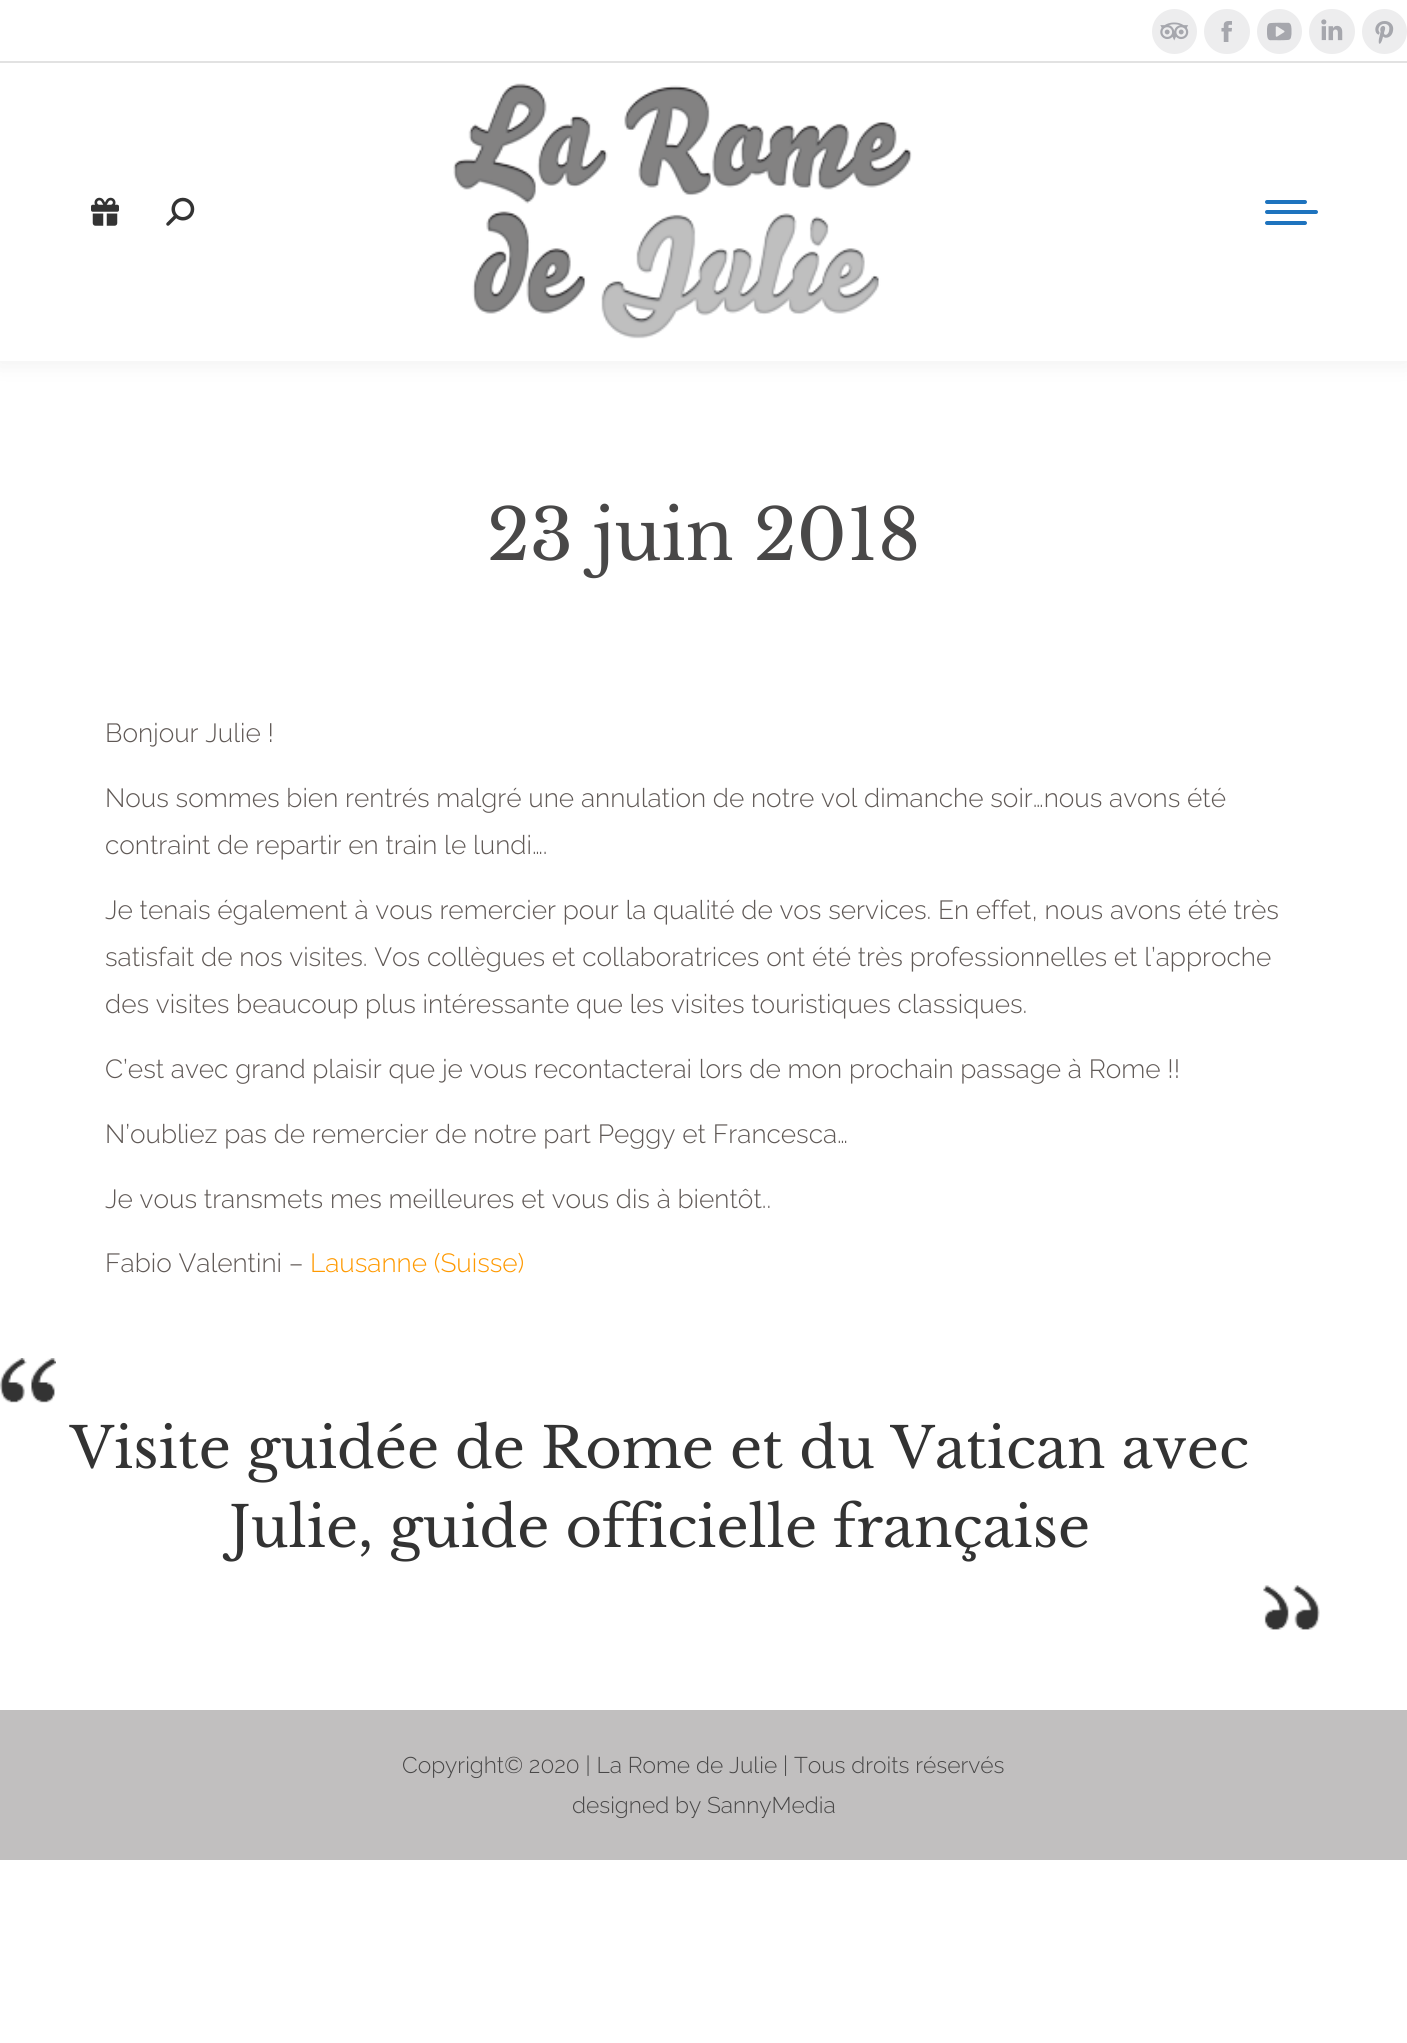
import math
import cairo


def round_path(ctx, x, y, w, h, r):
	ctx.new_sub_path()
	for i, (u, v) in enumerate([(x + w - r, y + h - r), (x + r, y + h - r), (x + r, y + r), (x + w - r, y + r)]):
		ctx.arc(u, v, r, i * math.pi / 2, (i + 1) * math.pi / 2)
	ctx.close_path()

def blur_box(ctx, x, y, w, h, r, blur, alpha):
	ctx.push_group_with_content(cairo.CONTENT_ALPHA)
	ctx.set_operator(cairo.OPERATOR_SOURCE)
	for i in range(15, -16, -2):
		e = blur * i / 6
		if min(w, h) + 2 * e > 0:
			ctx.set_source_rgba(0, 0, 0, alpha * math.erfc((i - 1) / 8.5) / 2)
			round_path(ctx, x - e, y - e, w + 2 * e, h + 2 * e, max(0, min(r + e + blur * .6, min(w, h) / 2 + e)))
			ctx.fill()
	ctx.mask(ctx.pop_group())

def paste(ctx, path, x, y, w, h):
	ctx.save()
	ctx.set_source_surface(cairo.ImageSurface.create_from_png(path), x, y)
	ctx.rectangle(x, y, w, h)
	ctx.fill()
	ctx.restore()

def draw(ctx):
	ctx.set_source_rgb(1, 1, 1)
	ctx.paint()
	ctx.set_source_rgb(0, 0, 0)
	blur_box(ctx, -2, -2, 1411, 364, 0, 13, 0.07)
	ctx.set_source_rgb(1, 1, 1)
	ctx.rectangle(0, 0, 1407, 361)
	ctx.fill()
	ctx.set_source_rgb(0.929, 0.929, 0.933)
	ctx.arc(1174.5, 31.5, 22.5, 0, 2 * math.pi)
	ctx.fill()
	paste(ctx, 'media/1.png', 1160, 22, 29, 19)
	round_path(ctx, 1204, 9, 46, 45, 22.5)
	ctx.fill()
	paste(ctx, 'media/2.png', 1221, 21, 11, 21)
	ctx.arc(1279.5, 31.5, 22.5, 0, 2 * math.pi)
	ctx.fill()
	paste(ctx, 'media/3.png', 1267, 22, 25, 19)
	round_path(ctx, 1309, 9, 46, 45, 22.5)
	ctx.fill()
	paste(ctx, 'media/4.png', 1321, 19, 22, 22)
	ctx.arc(1384.5, 31.5, 22.5, 0, 2 * math.pi)
	ctx.fill()
	paste(ctx, 'media/5.png', 1375, 21, 19, 23)
	ctx.set_source_rgb(0.886, 0.886, 0.886)
	ctx.rectangle(0, 61, 1407, 2)
	ctx.fill()
	paste(ctx, 'media/6.png', 91, 197, 28, 29)
	paste(ctx, 'media/7.png', 166, 197, 29, 29)
	paste(ctx, 'media/8.png', 453, 83, 459, 256)
	ctx.set_source_rgb(0.118, 0.451, 0.745)
	round_path(ctx, 1265, 200, 42, 4, 2)
	ctx.fill()
	round_path(ctx, 1265, 210, 53, 4, 2)
	ctx.fill()
	round_path(ctx, 1265, 221, 42, 4, 2)
	ctx.fill()
	ctx.select_font_face('Libre Baskerville')
	ctx.set_font_size(70)
	ctx.set_source_rgb(0.286, 0.282, 0.282)
	ctx.move_to(487, 560)
	ctx.show_text('23 juin 2018')
	ctx.select_font_face('Raleway Light')
	ctx.set_font_size(26.25)
	ctx.set_source_rgb(0.376, 0.349, 0.337)
	for x, y, s in [
		(105, 742, 'Bonjour Julie !'),
		(105, 807, 'Nous sommes bien rentrés malgré une annulation de notre vol dimanche soir…nous avons été'),
		(105, 854, 'contraint de repartir en train le lundi….'),
		(105, 919, 'Je tenais également à vous remercier pour la qualité de vos services. En effet, nous avons été très'),
		(105, 966, 'satisfait de nos visites. Vos collègues et collaboratrices ont été très professionnelles et l’approche'),
		(105, 1013, 'des visites beaucoup plus intéressante que les visites touristiques classiques.'),
		(105, 1078, 'C’est avec grand plaisir que je vous recontacterai lors de mon prochain passage à Rome !!'),
		(105, 1143, 'N’oubliez pas de remercier de notre part Peggy et Francesca…'),
		(105, 1208, 'Je vous transmets mes meilleures et vous dis à bientôt..'),
		(105, 1272, 'Fabio Valentini –'),
	]:
		ctx.move_to(x, y)
		ctx.show_text(s)
	ctx.set_source_rgb(1, 0.6, 0)
	ctx.move_to(310, 1272)
	ctx.show_text('Lausanne (Suisse)')
	paste(ctx, 'media/9.png', 0, 1358, 56, 45)
	ctx.select_font_face('Libre Baskerville')
	ctx.set_font_size(56)
	ctx.set_source_rgb(0.2, 0.2, 0.2)
	ctx.move_to(70, 1468)
	ctx.show_text('Visite guidée de Rome et du Vatican avec')
	ctx.move_to(229, 1547)
	ctx.show_text('Julie, guide officielle française')
	paste(ctx, 'media/10.png', 1263, 1585, 57, 45)
	ctx.set_source_rgb(0.757, 0.749, 0.749)
	ctx.rectangle(0, 1710, 1407, 150)
	ctx.fill()
	ctx.select_font_face('Raleway Light')
	ctx.set_font_size(22.75)
	ctx.set_source_rgb(0.286, 0.282, 0.282)
	ctx.move_to(402, 1773)
	ctx.show_text('Copyright© 2020 | La Rome de Julie | Tous droits réservés')
	ctx.move_to(572, 1813)
	ctx.show_text('designed by SannyMedia')


surface = cairo.ImageSurface(cairo.FORMAT_RGB24, 1407, 2043)
ctx = cairo.Context(surface)
options = cairo.FontOptions()
options.set_hint_metrics(cairo.HINT_METRICS_OFF)
options.set_hint_style(cairo.HINT_STYLE_NONE)
ctx.set_font_options(options)
ctx.set_miter_limit(4)
draw(ctx)
surface.write_to_png('image.png')
